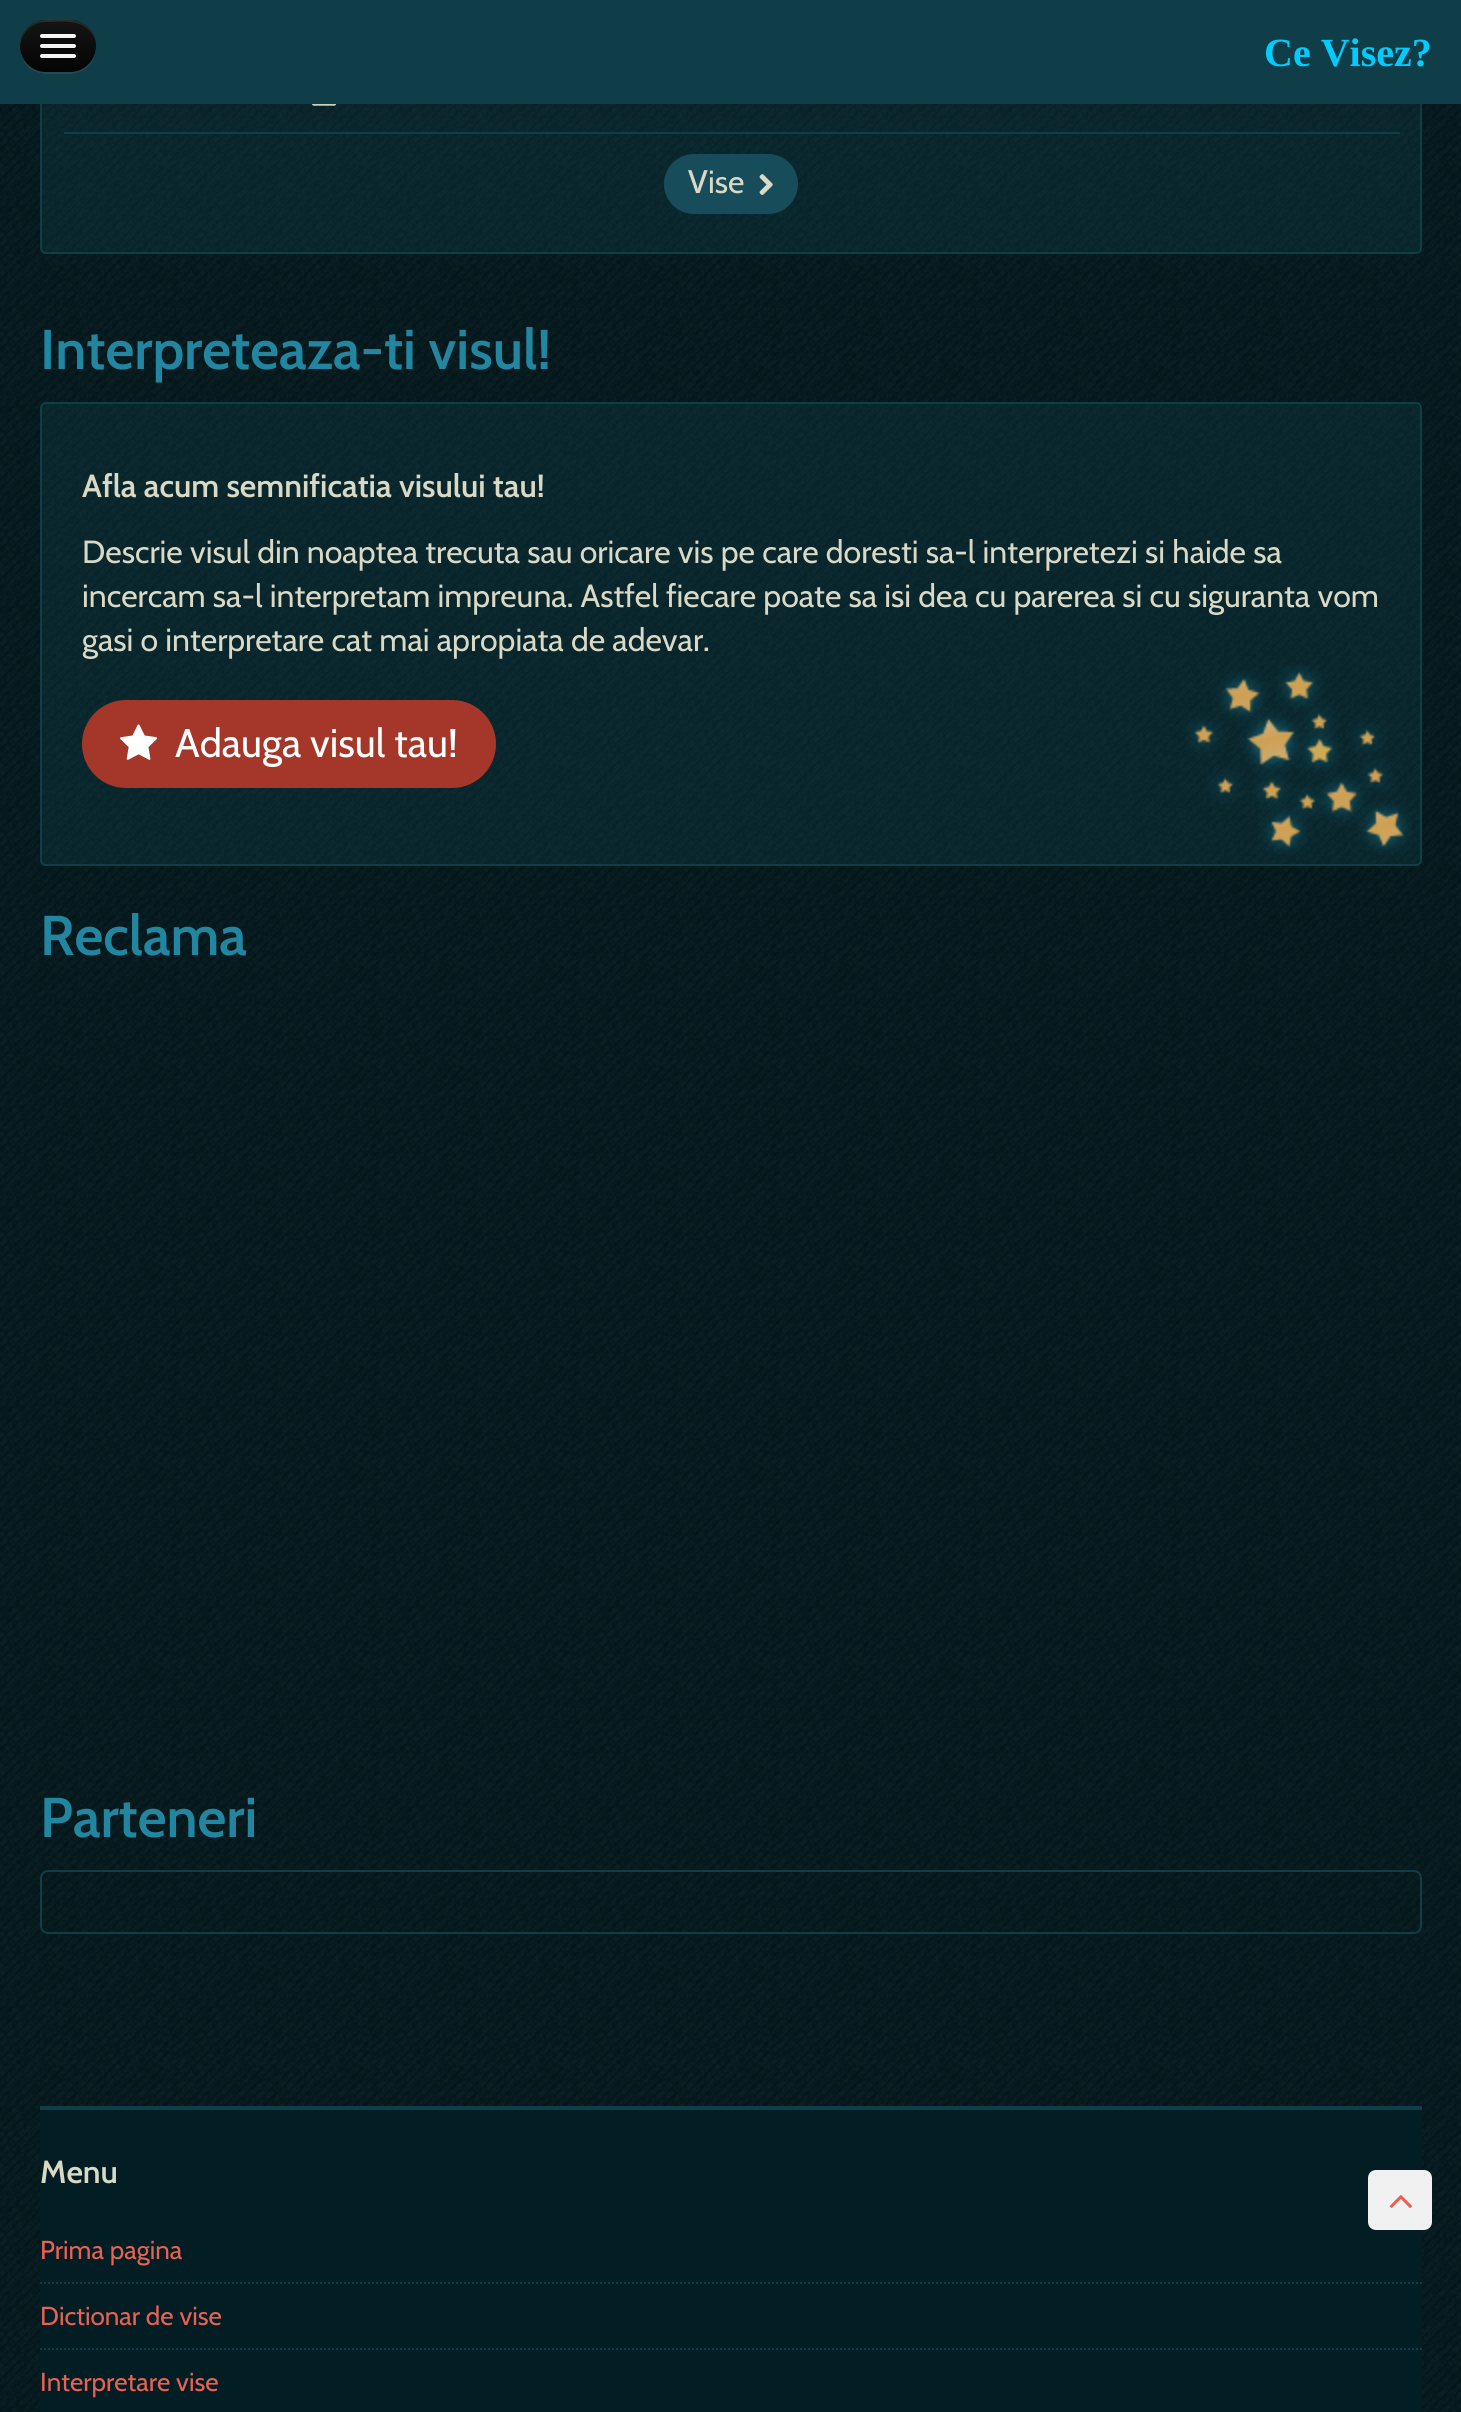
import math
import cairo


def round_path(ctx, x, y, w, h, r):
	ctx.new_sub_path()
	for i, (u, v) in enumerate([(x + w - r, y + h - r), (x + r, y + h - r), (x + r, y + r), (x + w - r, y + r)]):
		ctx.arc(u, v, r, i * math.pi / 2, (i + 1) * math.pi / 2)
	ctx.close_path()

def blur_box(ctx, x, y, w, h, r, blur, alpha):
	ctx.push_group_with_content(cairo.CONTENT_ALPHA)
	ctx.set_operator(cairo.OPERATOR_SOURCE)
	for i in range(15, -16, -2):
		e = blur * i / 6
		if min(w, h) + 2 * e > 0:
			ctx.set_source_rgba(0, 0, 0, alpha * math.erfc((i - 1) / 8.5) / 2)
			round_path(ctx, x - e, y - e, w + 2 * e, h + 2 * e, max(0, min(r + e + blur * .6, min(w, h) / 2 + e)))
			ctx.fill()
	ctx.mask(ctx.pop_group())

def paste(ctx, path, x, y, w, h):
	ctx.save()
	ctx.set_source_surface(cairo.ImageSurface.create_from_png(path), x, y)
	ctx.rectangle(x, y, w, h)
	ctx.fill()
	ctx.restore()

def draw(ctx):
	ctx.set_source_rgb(1, 1, 1)
	ctx.paint()
	paste(ctx, 'media/1.png', 0, 104, 1461, 2308)
	ctx.set_source_rgba(0.09, 0.298, 0.357, 0.25)
	round_path(ctx, 41, -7, 1380, 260, 5)
	ctx.fill_preserve()
	ctx.set_source_rgb(0.059, 0.239, 0.282)
	ctx.stroke()
	ctx.rectangle(64, 132, 1336, 2)
	ctx.fill()
	paste(ctx, 'media/2.png', 312, 104, 25, 2)
	ctx.set_source_rgb(0, 0, 0)
	blur_box(ctx, 0, 2, 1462, 104, 0, 10, 0.1)
	ctx.set_source_rgb(0.059, 0.239, 0.282)
	ctx.rectangle(0, 0, 1461, 104)
	ctx.fill()
	ctx.set_source_rgb(0.129, 0.298, 0.337)
	ctx.new_path()
	ctx.move_to(20, 47)
	ctx.curve_to(20, 60, 28, 71, 41, 73)
	ctx.curve_to(46, 75, 52, 74, 58, 74)
	ctx.curve_to(64, 74, 70, 75, 75, 73)
	ctx.curve_to(88, 71, 96, 60, 96, 47)
	ctx.curve_to(95, 61, 84, 72, 70, 72)
	ctx.line_to(46, 72)
	ctx.curve_to(32, 72, 21, 61, 20, 47)
	ctx.close_path()
	ctx.fill()
	gradient = cairo.LinearGradient(58, 20, 58, 72)
	gradient.add_color_stop_rgba(0, 0.082, 0.082, 0.082, 1)
	gradient.add_color_stop_rgba(1, 0.016, 0.016, 0.016, 1)
	ctx.set_source(gradient)
	round_path(ctx, 20, 20, 76, 52, 26)
	ctx.fill()
	ctx.set_source_rgba(1, 1, 1, 0.1)
	ctx.new_path()
	ctx.move_to(46, 22)
	ctx.curve_to(62, 22, 84, 18, 93, 36)
	ctx.curve_to(96, 41, 96, 46, 95, 52)
	ctx.curve_to(98, 38, 89, 23, 75, 21)
	ctx.curve_to(70, 19, 64, 20, 58, 20)
	ctx.curve_to(52, 20, 46, 19, 41, 21)
	ctx.curve_to(28, 23, 19, 36, 20, 49)
	ctx.curve_to(20, 36, 29, 22, 46, 22)
	ctx.close_path()
	ctx.fill()
	ctx.set_source_rgb(0.043, 0.043, 0.043)
	ctx.new_path()
	ctx.move_to(40.5, 37)
	ctx.curve_to(38, 41, 47, 40, 47.5, 40)
	ctx.line_to(68.5, 40)
	ctx.curve_to(69, 40, 78, 41, 75.5, 37)
	ctx.curve_to(75.5, 37.5, 74.5, 38, 74, 38)
	ctx.line_to(42, 38)
	ctx.curve_to(41.5, 38, 40.5, 37.5, 40.5, 37)
	ctx.close_path()
	ctx.fill()
	ctx.set_source_rgb(0.961, 0.961, 0.961)
	round_path(ctx, 40, 34, 36, 4, 2)
	ctx.fill()
	ctx.set_source_rgb(0.035, 0.035, 0.035)
	ctx.new_path()
	ctx.move_to(40.5, 47)
	ctx.curve_to(38, 51, 47, 50, 47.5, 50)
	ctx.line_to(68.5, 50)
	ctx.curve_to(69, 50, 78, 51, 75.5, 47)
	ctx.curve_to(75.5, 47.5, 74.5, 48, 74, 48)
	ctx.line_to(42, 48)
	ctx.curve_to(41.5, 48, 40.5, 47.5, 40.5, 47)
	ctx.close_path()
	ctx.fill()
	ctx.set_source_rgb(0.961, 0.961, 0.961)
	round_path(ctx, 40, 44, 36, 4, 2)
	ctx.fill()
	round_path(ctx, 40, 54, 36, 4, 2)
	ctx.fill()
	ctx.select_font_face('Liberation Serif', cairo.FONT_SLANT_NORMAL, cairo.FONT_WEIGHT_BOLD)
	ctx.set_font_size(40)
	ctx.set_source_rgb(0, 0.8, 1)
	ctx.move_to(1264, 66)
	ctx.show_text('Ce Visez?')
	ctx.set_source_rgb(0.09, 0.298, 0.357)
	round_path(ctx, 664, 154, 134, 60, 30)
	ctx.fill()
	ctx.select_font_face('Noto Sans Medium')
	ctx.set_font_size(32)
	ctx.set_source_rgb(0.851, 0.851, 0.773)
	ctx.move_to(688, 193)
	ctx.show_text('V')
	ctx.select_font_face('Cabin')
	ctx.move_to(708, 193)
	ctx.show_text('ise')
	paste(ctx, 'media/3.png', 759, 174, 14, 21)
	ctx.select_font_face('Cabin SemiBold')
	ctx.set_font_size(56)
	ctx.set_source_rgb(0.133, 0.525, 0.631)
	ctx.move_to(40, 369)
	ctx.show_text('Interpreteaza-ti visul!')
	ctx.set_source_rgba(0.09, 0.298, 0.357, 0.25)
	round_path(ctx, 40, 402, 1382, 464, 6)
	ctx.fill()
	paste(ctx, 'media/4.png', 1186, 665, 226, 190)
	round_path(ctx, 41, 403, 1380, 462, 5)
	ctx.set_source_rgb(0.059, 0.239, 0.282)
	ctx.stroke()
	ctx.set_font_size(32)
	ctx.set_source_rgb(0.851, 0.851, 0.773)
	ctx.move_to(82, 497)
	ctx.show_text('Afla acum semnificatia visului tau!')
	ctx.select_font_face('Cabin')
	for x, y, s in [
		(82, 563, 'Descrie visul din noaptea trecuta sau oricare vis pe care doresti sa-l interpretezi si haide sa'),
		(82, 607, 'incercam sa-l interpretam impreuna. Astfel fiecare poate sa isi dea cu parerea si cu siguranta vom'),
		(82, 651, 'gasi o interpretare cat mai apropiata de adevar.'),
	]:
		ctx.move_to(x, y)
		ctx.show_text(s)
	ctx.set_source_rgb(0.643, 0.216, 0.165)
	round_path(ctx, 82, 700, 414, 88, 44)
	ctx.fill()
	paste(ctx, 'media/5.png', 120, 724, 38, 36)
	ctx.set_font_size(40)
	ctx.set_source_rgb(1, 1, 1)
	ctx.move_to(175, 757)
	ctx.show_text('Adauga visul tau!')
	ctx.select_font_face('Cabin SemiBold')
	ctx.set_font_size(56)
	ctx.set_source_rgb(0.133, 0.525, 0.631)
	ctx.move_to(40, 955)
	ctx.show_text('Reclama')
	ctx.move_to(40, 1837)
	ctx.show_text('Parteneri')
	round_path(ctx, 41, 1871, 1380, 62, 7)
	ctx.set_source_rgb(0.059, 0.239, 0.282)
	ctx.stroke()
	ctx.set_source_rgb(0.008, 0.118, 0.141)
	ctx.rectangle(40, 2110, 1382, 302)
	ctx.fill()
	ctx.set_source_rgb(0.945, 0.945, 0.945)
	round_path(ctx, 1368, 2170, 64, 60, 8)
	ctx.fill()
	paste(ctx, 'media/6.png', 1389, 2195, 23, 13)
	ctx.set_source_rgb(0.059, 0.239, 0.282)
	ctx.rectangle(40, 2106, 1382, 4)
	ctx.fill()
	ctx.set_font_size(32)
	ctx.set_source_rgb(0.851, 0.851, 0.773)
	ctx.move_to(40, 2183)
	ctx.show_text('Menu')
	ctx.new_path()
	ctx.move_to(40, 2283)
	ctx.line_to(1422, 2283)
	ctx.set_source_rgb(0.059, 0.239, 0.282)
	ctx.set_dash([2, 2])
	ctx.stroke()
	ctx.select_font_face('Cabin')
	ctx.set_font_size(26)
	ctx.set_source_rgb(0.914, 0.38, 0.318)
	ctx.move_to(40, 2259)
	ctx.show_text('Prima pagina')
	ctx.new_path()
	ctx.move_to(40, 2349)
	ctx.line_to(1422, 2349)
	ctx.set_source_rgb(0.059, 0.239, 0.282)
	ctx.stroke()
	ctx.set_source_rgb(0.914, 0.38, 0.318)
	ctx.move_to(40, 2325)
	ctx.show_text('Dictionar de vise')
	ctx.move_to(40, 2391)
	ctx.show_text('Interpretare vise')


surface = cairo.ImageSurface(cairo.FORMAT_RGB24, 1461, 2412)
ctx = cairo.Context(surface)
options = cairo.FontOptions()
options.set_hint_metrics(cairo.HINT_METRICS_OFF)
options.set_hint_style(cairo.HINT_STYLE_NONE)
ctx.set_font_options(options)
ctx.set_miter_limit(4)
draw(ctx)
surface.write_to_png('image.png')
